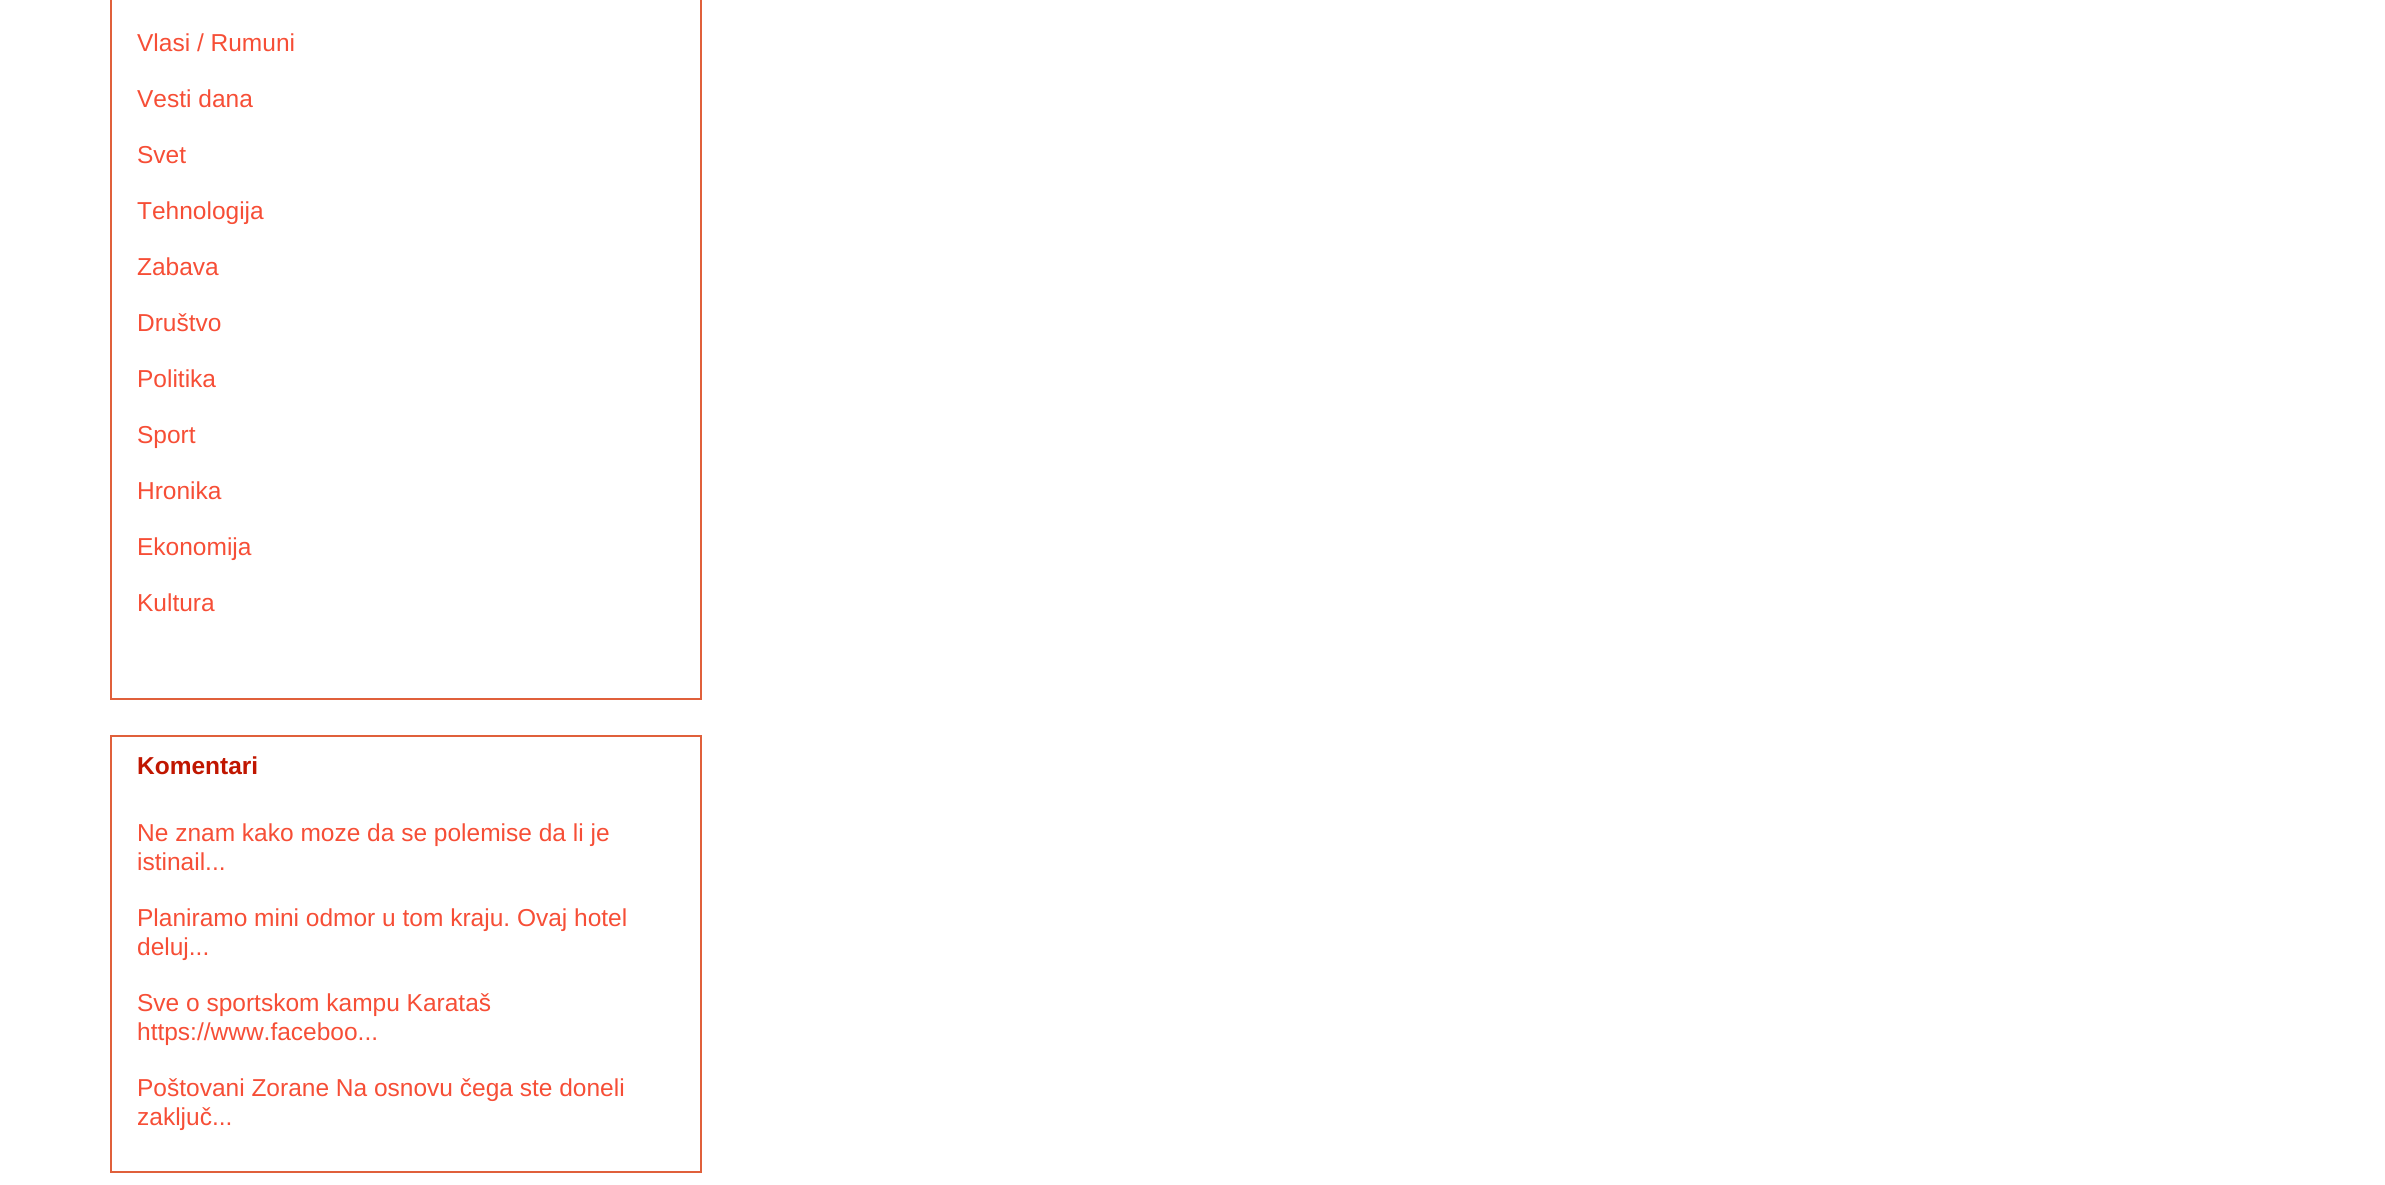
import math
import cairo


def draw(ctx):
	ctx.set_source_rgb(1, 1, 1)
	ctx.paint()
	ctx.rectangle(111, -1, 590, 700)
	ctx.set_source_rgb(0.878, 0.376, 0.231)
	ctx.stroke()
	ctx.select_font_face('Liberation Sans')
	ctx.set_font_size(24.5)
	ctx.set_source_rgb(0.961, 0.306, 0.212)
	for x, y, s in [
		(137, 51, 'Vlasi / Rumuni'),
		(137, 107, 'Vesti dana'),
		(137, 163, 'Svet'),
		(137, 219, 'Tehnologija'),
		(137, 275, 'Zabava'),
		(137, 331, 'Društvo'),
		(137, 387, 'Politika'),
		(137, 443, 'Sport'),
		(137, 499, 'Hronika'),
		(137, 555, 'Ekonomija'),
		(137, 611, 'Kultura'),
	]:
		ctx.move_to(x, y)
		ctx.show_text(s)
	ctx.rectangle(111, 736, 590, 436)
	ctx.set_source_rgb(0.878, 0.376, 0.231)
	ctx.stroke()
	ctx.select_font_face('Liberation Sans', cairo.FONT_SLANT_NORMAL, cairo.FONT_WEIGHT_BOLD)
	ctx.set_source_rgb(0.753, 0.086, 0)
	ctx.move_to(137, 774)
	ctx.show_text('Komentari')
	ctx.select_font_face('Liberation Sans')
	ctx.set_source_rgb(0.961, 0.306, 0.212)
	for x, y, s in [
		(137, 841, 'Ne znam kako moze da se polemise da li je'),
		(137, 870, 'istinail...'),
		(137, 926, 'Planiramo mini odmor u tom kraju. Ovaj hotel'),
		(137, 955, 'deluj...'),
		(137, 1011, 'Sve o sportskom kampu Karataš'),
		(137, 1040, 'https://www.faceboo...'),
		(137, 1096, 'Poštovani Zorane Na osnovu čega ste doneli'),
		(137, 1125, 'zaključ...'),
	]:
		ctx.move_to(x, y)
		ctx.show_text(s)


surface = cairo.ImageSurface(cairo.FORMAT_RGB24, 2385, 1185)
ctx = cairo.Context(surface)
options = cairo.FontOptions()
options.set_hint_metrics(cairo.HINT_METRICS_OFF)
options.set_hint_style(cairo.HINT_STYLE_NONE)
ctx.set_font_options(options)
ctx.set_miter_limit(4)
draw(ctx)
surface.write_to_png('image.png')
